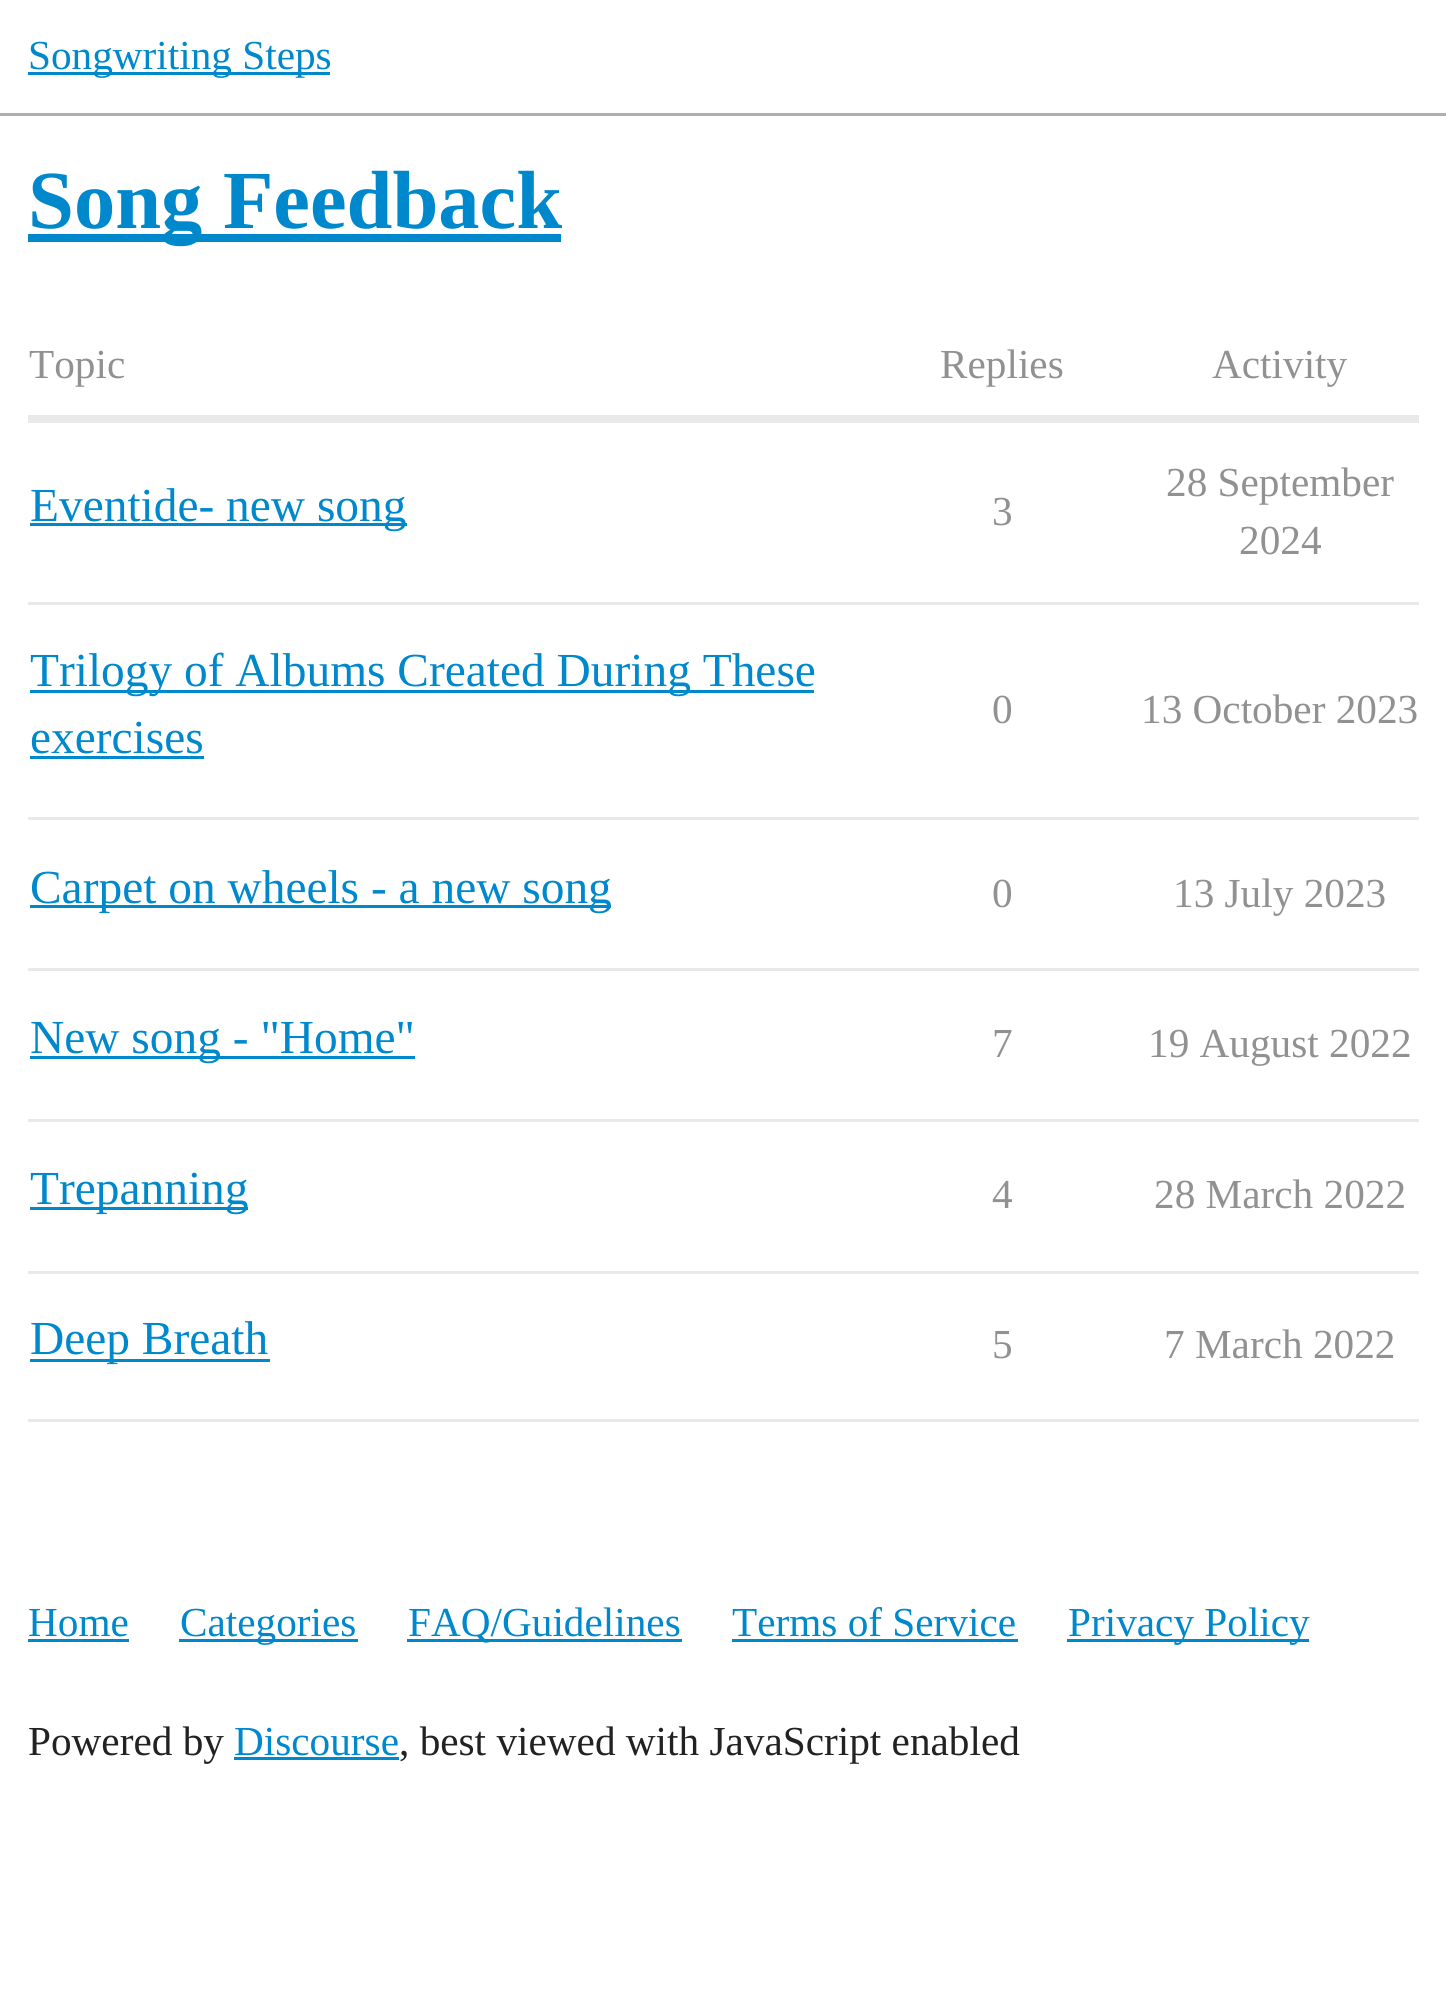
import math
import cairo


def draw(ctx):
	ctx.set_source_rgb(1, 1, 1)
	ctx.paint()
	ctx.set_source_rgb(0.686, 0.686, 0.686)
	ctx.rectangle(0, 113, 1446, 3)
	ctx.fill()
	ctx.set_source_rgb(0, 0.533, 0.8)
	ctx.rectangle(28, 72, 302, 3)
	ctx.fill()
	ctx.select_font_face('Liberation Serif')
	ctx.set_font_size(41.25)
	ctx.move_to(28, 69)
	ctx.show_text('Songwriting Steps')
	ctx.rectangle(28, 234, 533, 8)
	ctx.fill()
	ctx.select_font_face('Liberation Serif', cairo.FONT_SLANT_NORMAL, cairo.FONT_WEIGHT_BOLD)
	ctx.set_font_size(82.5)
	ctx.move_to(28, 228)
	ctx.show_text('Song Feedback')
	ctx.select_font_face('Liberation Serif')
	ctx.set_font_size(41.25)
	ctx.set_source_rgb(0.569, 0.569, 0.569)
	for x, y, s in [
		(29, 378, 'Topic'),
		(940, 378, 'Replies'),
		(1212, 378, 'Activity'),
	]:
		ctx.move_to(x, y)
		ctx.show_text(s)
	ctx.set_source_rgb(0.914, 0.914, 0.914)
	ctx.rectangle(28, 415, 1391, 8)
	ctx.rectangle(28, 602, 1391, 3)
	ctx.fill()
	ctx.set_source_rgb(0, 0.533, 0.8)
	ctx.rectangle(30, 523, 377, 3)
	ctx.fill()
	ctx.set_font_size(47.4)
	ctx.move_to(30, 521)
	ctx.show_text('Eventide- new song')
	ctx.set_font_size(41.25)
	ctx.set_source_rgb(0.569, 0.569, 0.569)
	for x, y, s in [
		(992, 525, '3'),
		(1166, 496, '28 September'),
		(1239, 554, '2024'),
	]:
		ctx.move_to(x, y)
		ctx.show_text(s)
	ctx.set_source_rgb(0.914, 0.914, 0.914)
	ctx.rectangle(28, 817, 1391, 3)
	ctx.fill()
	ctx.set_source_rgb(0, 0.533, 0.8)
	ctx.rectangle(30, 690, 784, 3)
	ctx.fill()
	ctx.set_font_size(47.4)
	ctx.move_to(30, 686)
	ctx.show_text('Trilogy of Albums Created During These')
	ctx.move_to(30, 753)
	ctx.show_text('exercises')
	ctx.rectangle(30, 756, 174, 3)
	ctx.fill()
	ctx.set_font_size(41.25)
	ctx.set_source_rgb(0.569, 0.569, 0.569)
	ctx.move_to(992, 723)
	ctx.show_text('0')
	ctx.move_to(1141, 723)
	ctx.show_text('13 October 2023')
	ctx.set_source_rgb(0.914, 0.914, 0.914)
	ctx.rectangle(28, 968, 1391, 3)
	ctx.fill()
	ctx.set_source_rgb(0, 0.533, 0.8)
	ctx.rectangle(30, 905, 581, 3)
	ctx.fill()
	ctx.set_font_size(47.4)
	ctx.move_to(30, 903)
	ctx.show_text('Carpet on wheels - a new song')
	ctx.set_font_size(41.25)
	ctx.set_source_rgb(0.569, 0.569, 0.569)
	ctx.move_to(992, 907)
	ctx.show_text('0')
	ctx.move_to(1173, 907)
	ctx.show_text('13 July 2023')
	ctx.set_source_rgb(0.914, 0.914, 0.914)
	ctx.rectangle(28, 1119, 1391, 3)
	ctx.fill()
	ctx.set_source_rgb(0, 0.533, 0.8)
	ctx.rectangle(30, 1056, 385, 3)
	ctx.fill()
	ctx.set_font_size(47.4)
	ctx.move_to(30, 1053)
	ctx.show_text('New song - "Home"')
	ctx.set_font_size(41.25)
	ctx.set_source_rgb(0.569, 0.569, 0.569)
	ctx.move_to(992, 1057)
	ctx.show_text('7')
	ctx.move_to(1148, 1057)
	ctx.show_text('19 August 2022')
	ctx.set_source_rgb(0.914, 0.914, 0.914)
	ctx.rectangle(28, 1271, 1391, 3)
	ctx.fill()
	ctx.set_source_rgb(0, 0.533, 0.8)
	ctx.rectangle(30, 1207, 218, 3)
	ctx.fill()
	ctx.set_font_size(47.4)
	ctx.move_to(30, 1204)
	ctx.show_text('Trepanning')
	ctx.set_font_size(41.25)
	ctx.set_source_rgb(0.569, 0.569, 0.569)
	ctx.move_to(992, 1208)
	ctx.show_text('4')
	ctx.move_to(1154, 1208)
	ctx.show_text('28 March 2022')
	ctx.set_source_rgb(0.914, 0.914, 0.914)
	ctx.rectangle(28, 1419, 1391, 3)
	ctx.fill()
	ctx.set_source_rgb(0, 0.533, 0.8)
	ctx.rectangle(30, 1359, 240, 3)
	ctx.fill()
	ctx.set_font_size(47.4)
	ctx.move_to(30, 1354)
	ctx.show_text('Deep Breath')
	ctx.set_font_size(41.25)
	ctx.set_source_rgb(0.569, 0.569, 0.569)
	ctx.move_to(992, 1358)
	ctx.show_text('5')
	ctx.move_to(1164, 1358)
	ctx.show_text('7 March 2022')
	ctx.set_source_rgb(0, 0.533, 0.8)
	ctx.move_to(28, 1636)
	ctx.show_text('Home')
	ctx.rectangle(28, 1639, 101, 3)
	ctx.fill()
	ctx.rectangle(179, 1639, 179, 3)
	ctx.fill()
	ctx.move_to(180, 1636)
	ctx.show_text('Categories')
	ctx.rectangle(407, 1639, 275, 3)
	ctx.fill()
	ctx.move_to(408, 1636)
	ctx.show_text('FAQ/Guidelines')
	ctx.move_to(732, 1636)
	ctx.show_text('Terms of Service')
	ctx.rectangle(732, 1639, 286, 3)
	ctx.fill()
	ctx.rectangle(1067, 1639, 242, 3)
	ctx.fill()
	ctx.move_to(1068, 1636)
	ctx.show_text('Privacy Policy')
	ctx.set_source_rgb(0.133, 0.133, 0.133)
	ctx.move_to(28, 1755)
	ctx.show_text('Powered by')
	ctx.set_source_rgb(0, 0.533, 0.8)
	ctx.move_to(234, 1755)
	ctx.show_text('Discourse')
	ctx.rectangle(234, 1757, 165, 3)
	ctx.fill()
	ctx.set_source_rgb(0.133, 0.133, 0.133)
	ctx.move_to(399, 1755)
	ctx.show_text(', best viewed with JavaScript enabled')


surface = cairo.ImageSurface(cairo.FORMAT_RGB24, 1446, 2001)
ctx = cairo.Context(surface)
options = cairo.FontOptions()
options.set_hint_metrics(cairo.HINT_METRICS_OFF)
options.set_hint_style(cairo.HINT_STYLE_NONE)
ctx.set_font_options(options)
ctx.set_miter_limit(4)
draw(ctx)
surface.write_to_png('image.png')
